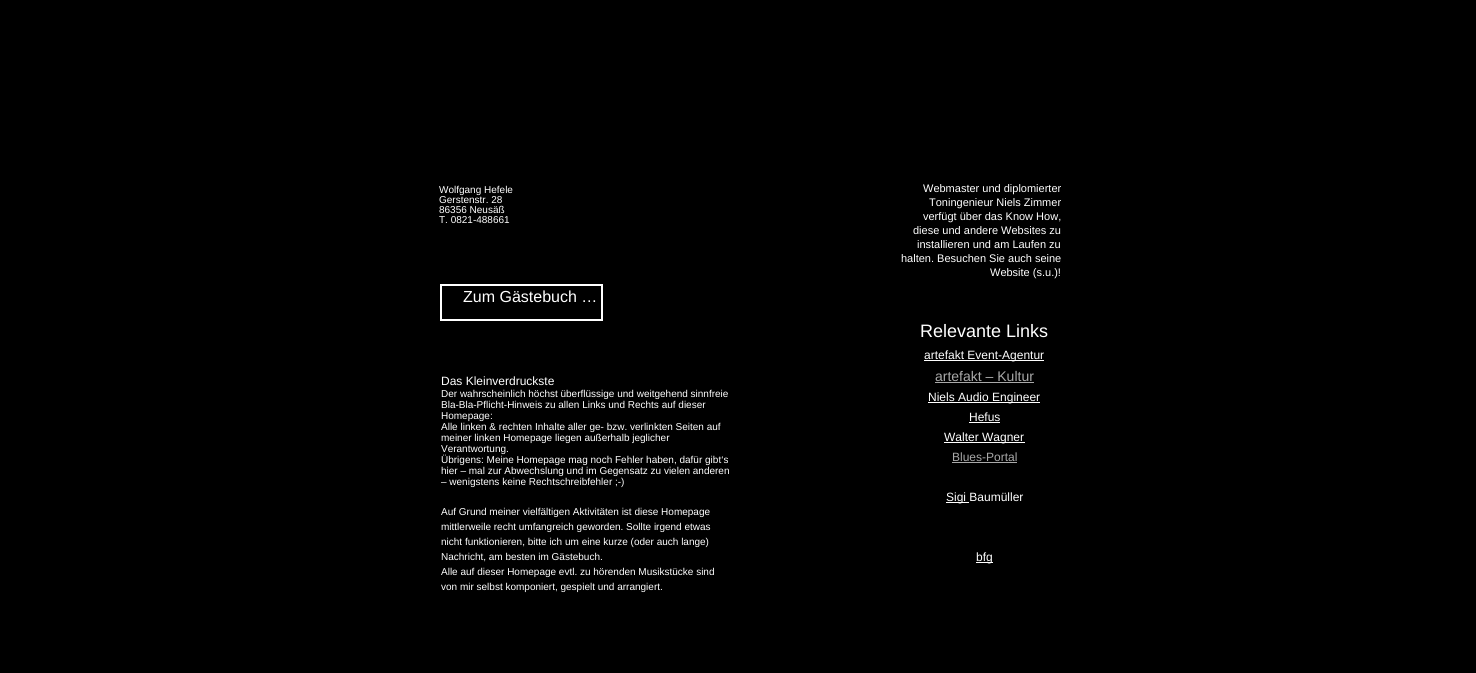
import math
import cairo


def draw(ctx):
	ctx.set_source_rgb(0, 0, 0)
	ctx.paint()
	ctx.select_font_face('Liberation Sans')
	ctx.set_font_size(10)
	ctx.set_source_rgb(1, 1, 1)
	for x, y, s in [
		(439, 193, 'Wolfgang Hefele'),
		(439, 203, 'Gerstenstr. 28'),
		(439, 213, '86356 Neusäß'),
		(439, 223, 'T. 0821-488661'),
	]:
		ctx.move_to(x, y)
		ctx.show_text(s)
	ctx.set_font_size(11)
	for x, y, s in [
		(923, 192, 'Webmaster und diplomierter'),
		(929, 206, 'Toningenieur Niels Zimmer'),
		(923, 220, 'verfügt über das Know How,'),
		(913, 234, 'diese und andere Websites zu'),
		(917, 248, 'installieren und am Laufen zu'),
		(901, 262, 'halten. Besuchen Sie auch seine'),
		(990, 276, 'Website (s.u.)!'),
	]:
		ctx.move_to(x, y)
		ctx.show_text(s)
	ctx.rectangle(441, 285, 161, 35)
	ctx.stroke()
	ctx.set_font_size(16)
	ctx.move_to(463, 302)
	ctx.show_text('Zum Gästebuch …')
	ctx.set_font_size(18)
	ctx.move_to(920, 337)
	ctx.show_text('Relevante Links')
	ctx.rectangle(924, 360, 120, 1)
	ctx.fill()
	ctx.set_font_size(12)
	ctx.move_to(924, 359)
	ctx.show_text('artefakt Event-Agentur')
	ctx.move_to(441, 385)
	ctx.show_text('Das Kleinverdruckste')
	ctx.set_font_size(10)
	for x, y, s in [
		(441, 397, 'Der wahrscheinlich höchst überflüssige und weitgehend sinnfreie'),
		(441, 408, 'Bla-Bla-Pflicht-Hinweis zu allen Links und Rechts auf dieser'),
		(441, 419, 'Homepage:'),
		(441, 430, 'Alle linken & rechten Inhalte aller ge- bzw. verlinkten Seiten auf'),
		(441, 441, 'meiner linken Homepage liegen außerhalb jeglicher'),
		(441, 452, 'Verantwortung.'),
		(441, 463, 'Übrigens: Meine Homepage mag noch Fehler haben, dafür gibt‘s'),
		(441, 474, 'hier – mal zur Abwechslung und im Gegensatz zu vielen anderen'),
		(441, 485, '– wenigstens keine Rechtschreibfehler ;-)'),
		(441, 515, 'Auf Grund meiner vielfältigen Aktivitäten ist diese Homepage'),
		(441, 530, 'mittlerweile recht umfangreich geworden. Sollte irgend etwas'),
		(441, 545, 'nicht funktionieren, bitte ich um eine kurze (oder auch lange)'),
		(441, 560, 'Nachricht, am besten im Gästebuch.'),
		(441, 575, 'Alle auf dieser Homepage evtl. zu hörenden Musikstücke sind'),
		(441, 590, 'von mir selbst komponiert, gespielt und arrangiert.'),
	]:
		ctx.move_to(x, y)
		ctx.show_text(s)
	ctx.set_font_size(14)
	ctx.set_source_rgb(0.663, 0.663, 0.663)
	ctx.move_to(935, 381)
	ctx.show_text('artefakt – Kultur')
	ctx.rectangle(935, 382, 99, 1)
	ctx.fill()
	ctx.set_source_rgb(1, 1, 1)
	ctx.rectangle(928, 402, 112, 1)
	ctx.fill()
	ctx.set_font_size(12)
	ctx.move_to(928, 401)
	ctx.show_text('Niels Audio Engineer')
	ctx.move_to(969, 421)
	ctx.show_text('Hefus')
	ctx.rectangle(969, 422, 31, 1)
	ctx.fill()
	ctx.rectangle(944, 442, 81, 1)
	ctx.fill()
	ctx.move_to(944, 441)
	ctx.show_text('Walter Wagner')
	ctx.set_source_rgb(0.663, 0.663, 0.663)
	ctx.move_to(952, 461)
	ctx.show_text('Blues-Portal')
	ctx.rectangle(952, 462, 65, 1)
	ctx.fill()
	ctx.set_source_rgb(1, 1, 1)
	ctx.rectangle(946, 502, 23, 1)
	ctx.fill()
	ctx.move_to(946, 501)
	ctx.show_text('Sigi Baumüller')
	ctx.rectangle(976, 562, 17, 1)
	ctx.fill()
	ctx.move_to(976, 561)
	ctx.show_text('bfg')


surface = cairo.ImageSurface(cairo.FORMAT_RGB24, 1476, 673)
ctx = cairo.Context(surface)
options = cairo.FontOptions()
options.set_hint_metrics(cairo.HINT_METRICS_OFF)
options.set_hint_style(cairo.HINT_STYLE_NONE)
ctx.set_font_options(options)
ctx.set_miter_limit(4)
draw(ctx)
surface.write_to_png('image.png')
